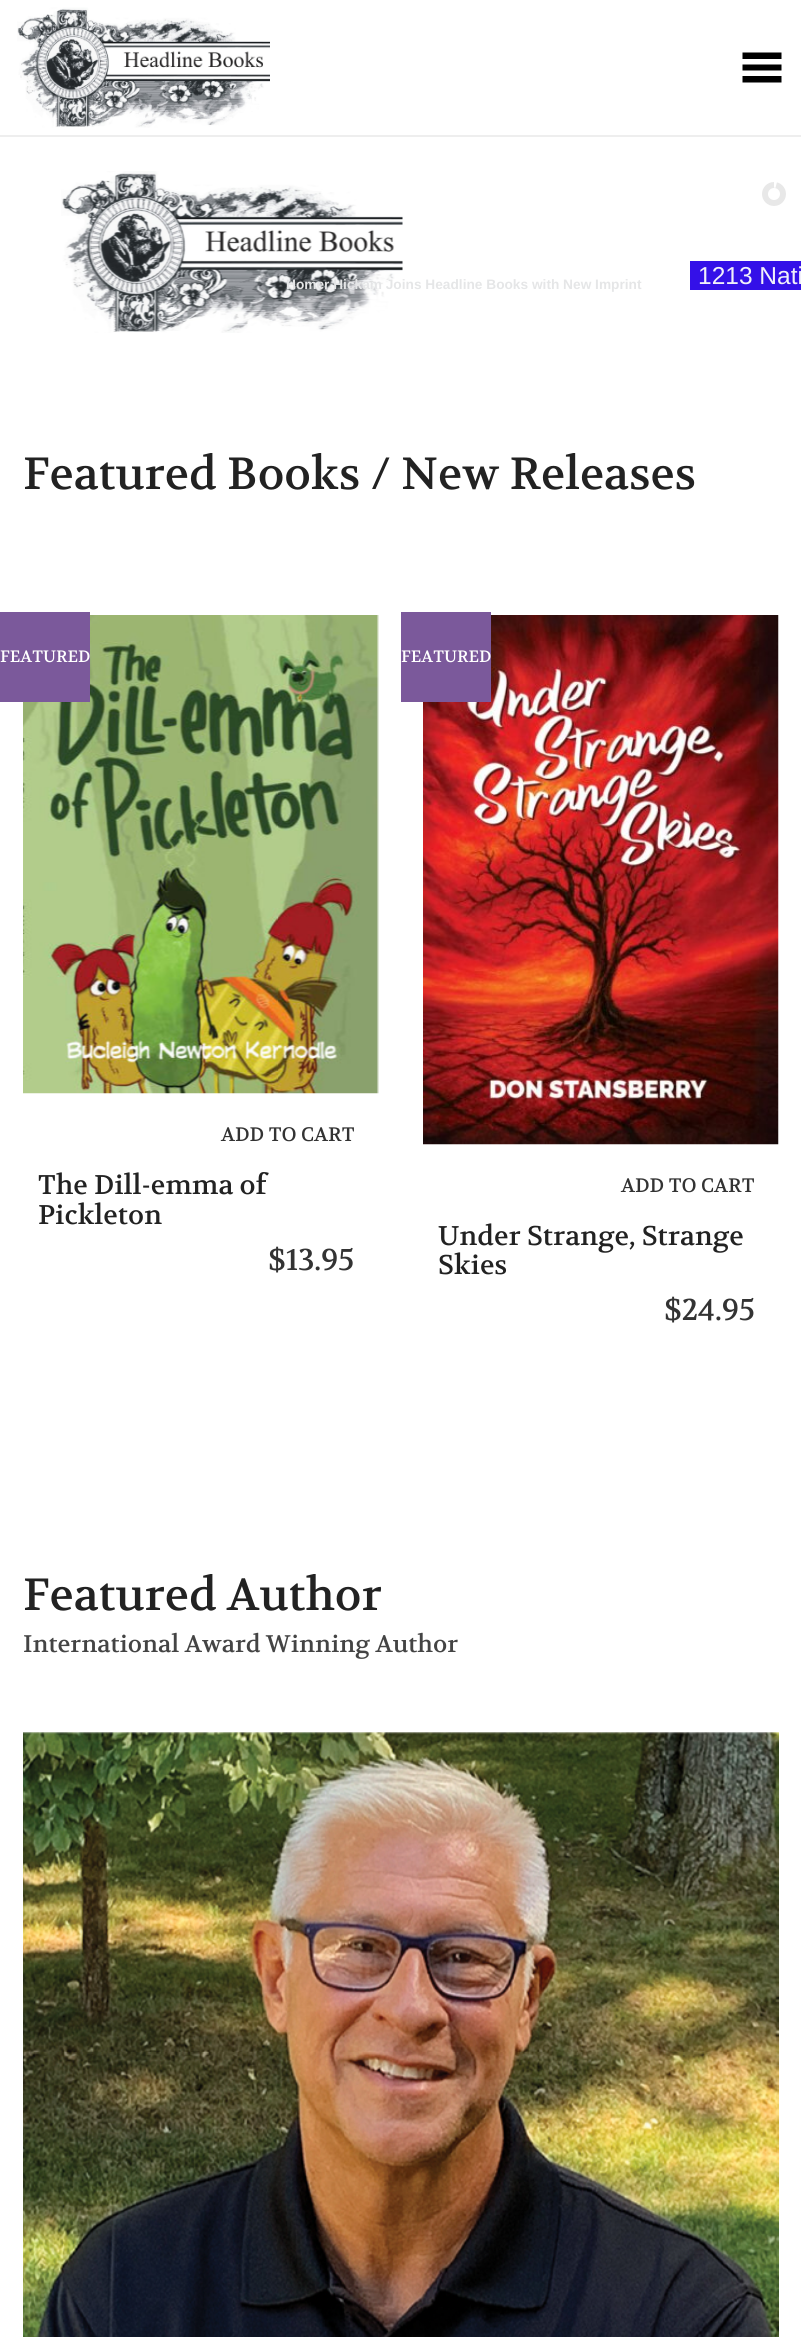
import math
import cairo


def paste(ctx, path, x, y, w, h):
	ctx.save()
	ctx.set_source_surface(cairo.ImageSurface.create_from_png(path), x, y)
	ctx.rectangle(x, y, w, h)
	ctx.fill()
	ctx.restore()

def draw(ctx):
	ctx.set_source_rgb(1, 1, 1)
	ctx.paint()
	ctx.set_source_rgb(0.933, 0.933, 0.933)
	ctx.rectangle(0, 135, 801, 2)
	ctx.fill()
	paste(ctx, 'media/1.png', 17, 7, 253, 121)
	ctx.set_source_rgb(0, 0, 0)
	ctx.new_path()
	ctx.move_to(781.5, 59)
	ctx.line_to(742.5, 59)
	ctx.line_to(742.5, 52.5)
	ctx.line_to(781.5, 52.5)
	ctx.close_path()
	ctx.move_to(781.5, 64.5)
	ctx.line_to(742.5, 64.5)
	ctx.line_to(742.5, 70.5)
	ctx.line_to(781.5, 70.5)
	ctx.close_path()
	ctx.move_to(781.5, 76)
	ctx.line_to(742.5, 76)
	ctx.line_to(742.5, 82.5)
	ctx.line_to(781.5, 82.5)
	ctx.close_path()
	ctx.fill()
	ctx.arc(774, 194, 9, 0, 2 * math.pi)
	ctx.set_source_rgb(0.91, 0.91, 0.91)
	ctx.set_line_width(6)
	ctx.stroke()
	ctx.save()
	ctx.rectangle(774, 182, 12, 24)
	ctx.clip()
	ctx.new_path()
	ctx.move_to(765.5, 179)
	ctx.line_to(777, 182)
	ctx.line_to(771, 205)
	ctx.line_to(759.5, 202)
	ctx.close_path()
	ctx.clip()
	ctx.new_path()
	ctx.move_to(776.5, 185)
	ctx.curve_to(787.5, 188, 783, 205.5, 771.5, 202.5)
	ctx.curve_to(760.5, 199.5, 765, 182, 776.5, 185)
	ctx.close_path()
	ctx.set_source_rgb(1, 1, 1)
	ctx.stroke()
	ctx.restore()
	paste(ctx, 'media/2.png', 61, 171, 342, 162)
	ctx.select_font_face('Liberation Sans', cairo.FONT_SLANT_NORMAL, cairo.FONT_WEIGHT_BOLD)
	ctx.set_font_size(13.7)
	ctx.set_source_rgb(0.898, 0.902, 0.906)
	ctx.move_to(286, 289)
	ctx.show_text('Homer Hickam Joins Headline Books with New Imprint')
	ctx.set_source_rgb(0.204, 0.063, 0.91)
	ctx.rectangle(690, 261, 111, 29)
	ctx.fill()
	ctx.select_font_face('Liberation Sans')
	ctx.set_font_size(24.5)
	ctx.set_source_rgb(0.945, 0.941, 0.98)
	ctx.move_to(698, 284)
	ctx.show_text('1213 Nati')
	ctx.select_font_face('Volkhov')
	ctx.set_font_size(45)
	ctx.set_source_rgb(0.133, 0.133, 0.133)
	ctx.move_to(23, 489)
	ctx.show_text('Featured Books / New Releases')
	paste(ctx, 'media/3.png', 23, 615, 356, 479)
	ctx.set_source_rgb(0.482, 0.349, 0.608)
	ctx.rectangle(0, 612, 90, 90)
	ctx.fill()
	ctx.set_font_size(16.5)
	ctx.set_source_rgb(1, 1, 1)
	ctx.move_to(0, 662)
	ctx.show_text('FEATURED')
	ctx.set_font_size(19.5)
	ctx.set_source_rgb(0.2, 0.2, 0.2)
	ctx.move_to(221, 1141)
	ctx.show_text('ADD TO CART')
	ctx.set_font_size(27)
	ctx.set_source_rgb(0.133, 0.133, 0.133)
	ctx.move_to(38, 1194)
	ctx.show_text('The Dill-emma of')
	ctx.move_to(38, 1224)
	ctx.show_text('Pickleton')
	ctx.set_font_size(30)
	ctx.set_source_rgb(0.2, 0.2, 0.2)
	ctx.move_to(268, 1270)
	ctx.show_text('$13.95')
	paste(ctx, 'media/4.png', 423, 615, 356, 530)
	ctx.set_source_rgb(0.482, 0.349, 0.608)
	ctx.rectangle(401, 612, 90, 90)
	ctx.fill()
	ctx.set_font_size(16.5)
	ctx.set_source_rgb(1, 1, 1)
	ctx.move_to(401, 662)
	ctx.show_text('FEATURED')
	ctx.set_font_size(19.5)
	ctx.set_source_rgb(0.2, 0.2, 0.2)
	ctx.move_to(621, 1192)
	ctx.show_text('ADD TO CART')
	ctx.set_font_size(27)
	ctx.set_source_rgb(0.133, 0.133, 0.133)
	ctx.move_to(438, 1245)
	ctx.show_text('Under Strange, Strange')
	ctx.move_to(438, 1274)
	ctx.show_text('Skies')
	ctx.set_font_size(30)
	ctx.set_source_rgb(0.2, 0.2, 0.2)
	ctx.move_to(664, 1320)
	ctx.show_text('$24.95')
	ctx.set_font_size(45)
	ctx.set_source_rgb(0.133, 0.133, 0.133)
	ctx.move_to(23, 1610)
	ctx.show_text('Featured Author')
	ctx.set_font_size(24)
	ctx.set_source_rgb(0.267, 0.267, 0.267)
	ctx.move_to(23, 1652)
	ctx.show_text('International Award Winning Author')
	paste(ctx, 'media/5.png', 23, 1732, 756, 605)


surface = cairo.ImageSurface(cairo.FORMAT_RGB24, 801, 2337)
ctx = cairo.Context(surface)
options = cairo.FontOptions()
options.set_hint_metrics(cairo.HINT_METRICS_OFF)
options.set_hint_style(cairo.HINT_STYLE_NONE)
ctx.set_font_options(options)
ctx.set_miter_limit(4)
draw(ctx)
surface.write_to_png('image.png')
